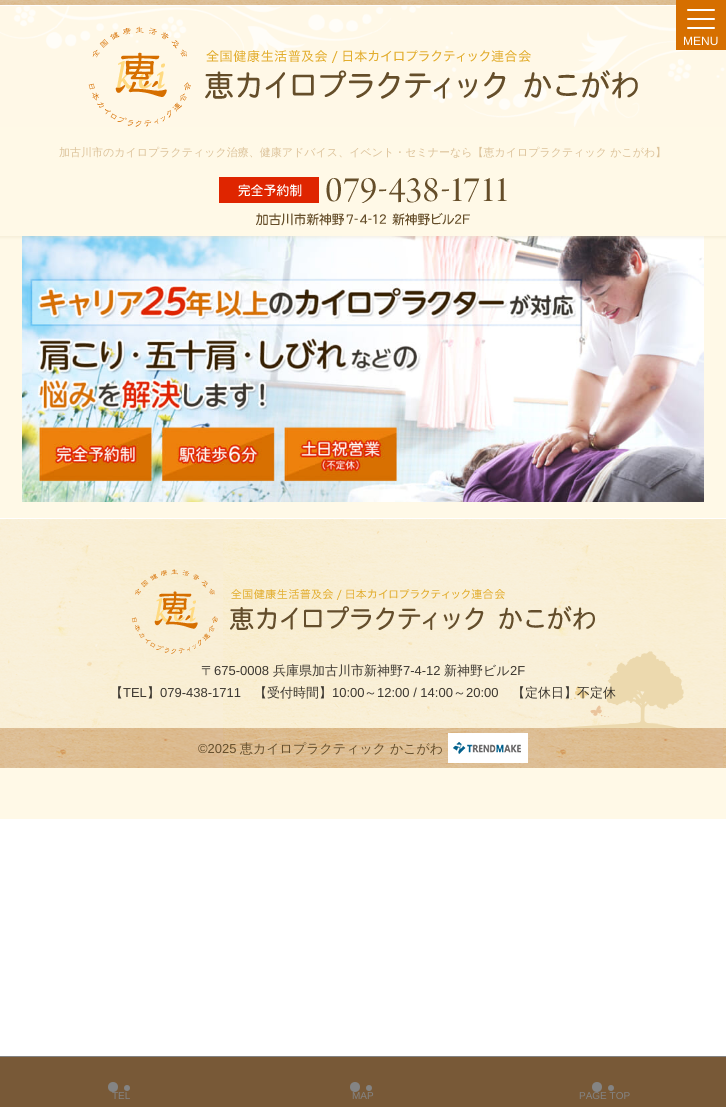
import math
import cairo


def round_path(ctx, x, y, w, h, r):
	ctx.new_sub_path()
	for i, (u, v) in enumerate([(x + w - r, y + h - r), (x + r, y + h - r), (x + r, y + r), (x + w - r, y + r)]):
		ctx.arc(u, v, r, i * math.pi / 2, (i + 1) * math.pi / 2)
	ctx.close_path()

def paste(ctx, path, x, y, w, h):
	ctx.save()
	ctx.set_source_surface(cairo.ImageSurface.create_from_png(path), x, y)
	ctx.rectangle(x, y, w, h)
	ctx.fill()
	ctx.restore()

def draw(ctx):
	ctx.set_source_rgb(1, 1, 1)
	ctx.paint()
	ctx.set_source_rgb(1, 0.973, 0.906)
	ctx.rectangle(0, 127, 726, 692)
	ctx.fill()
	paste(ctx, 'media/1.png', 0, 0, 726, 127)
	ctx.set_source_rgb(0.839, 0.435, 0)
	ctx.rectangle(676, 0, 50, 50)
	ctx.fill()
	ctx.set_source_rgb(1, 1, 1)
	round_path(ctx, 687, 9, 28, 2, 1)
	ctx.fill()
	round_path(ctx, 687, 18, 28, 2, 1)
	ctx.fill()
	round_path(ctx, 687, 27, 28, 2, 1)
	ctx.fill()
	ctx.select_font_face('Liberation Sans')
	ctx.set_font_size(12)
	ctx.move_to(683, 45)
	ctx.show_text('MENU')
	paste(ctx, 'media/2.png', 88, 26, 550, 101)
	ctx.select_font_face('WenQuanYi Zen Hei Medium')
	ctx.set_font_size(11)
	ctx.set_source_rgb(0.863, 0.761, 0.6)
	ctx.move_to(59, 156)
	ctx.show_text('加古川市のカイロプラクティック治療、健康アドバイス、イベント・セミナーなら【恵カイロプラクティック かこがわ】')
	paste(ctx, 'media/3.png', 219, 177, 288, 26)
	paste(ctx, 'media/4.png', 256, 213, 214, 13)
	paste(ctx, 'media/6.png', 22, 236, 682, 266)
	paste(ctx, 'media/5.png', 0, 236, 726, 4)
	paste(ctx, 'media/7.png', 0, 519, 726, 209)
	ctx.set_source_rgb(1, 1, 1)
	ctx.rectangle(0, 518, 726, 1)
	ctx.fill()
	paste(ctx, 'media/8.png', 556, 651, 128, 77)
	paste(ctx, 'media/9.png', 131, 569, 464, 85)
	ctx.set_font_size(13)
	ctx.set_source_rgb(0.231, 0.212, 0.184)
	ctx.move_to(201, 675)
	ctx.show_text('〒')
	ctx.select_font_face('Liberation Sans')
	ctx.move_to(214, 675)
	ctx.show_text('675-0008')
	ctx.select_font_face('WenQuanYi Zen Hei Medium')
	ctx.move_to(273, 675)
	ctx.show_text('兵庫県加古川市新神野')
	ctx.select_font_face('Liberation Sans')
	ctx.move_to(403, 675)
	ctx.show_text('7-4-12')
	ctx.select_font_face('WenQuanYi Zen Hei Medium')
	ctx.move_to(444, 675)
	ctx.show_text('新神野ビル')
	ctx.select_font_face('Liberation Sans')
	ctx.move_to(510, 675)
	ctx.show_text('2F')
	ctx.select_font_face('WenQuanYi Zen Hei Medium')
	ctx.move_to(110, 697)
	ctx.show_text('【')
	ctx.select_font_face('Liberation Sans')
	ctx.move_to(123, 697)
	ctx.show_text('TEL')
	ctx.select_font_face('WenQuanYi Zen Hei Medium')
	ctx.move_to(147, 697)
	ctx.show_text('】')
	ctx.select_font_face('Liberation Sans')
	ctx.move_to(160, 697)
	ctx.show_text('079-438-1711')
	ctx.select_font_face('WenQuanYi Zen Hei Medium')
	ctx.move_to(254, 697)
	ctx.show_text('【受付時間】')
	ctx.select_font_face('Liberation Sans')
	ctx.move_to(332, 697)
	ctx.show_text('10:00')
	ctx.select_font_face('WenQuanYi Zen Hei Medium')
	ctx.move_to(364, 697)
	ctx.show_text('～')
	ctx.select_font_face('Liberation Sans')
	ctx.move_to(377, 697)
	ctx.show_text('12:00 / 14:00')
	ctx.select_font_face('WenQuanYi Zen Hei Medium')
	ctx.move_to(453, 697)
	ctx.show_text('～')
	ctx.select_font_face('Liberation Sans')
	ctx.move_to(466, 697)
	ctx.show_text('20:00')
	ctx.select_font_face('WenQuanYi Zen Hei Medium')
	ctx.move_to(512, 697)
	ctx.show_text('【定休日】不定休')
	paste(ctx, 'media/10.png', 0, 728, 726, 40)
	ctx.select_font_face('Liberation Sans')
	ctx.set_source_rgb(0.392, 0.306, 0.173)
	ctx.move_to(198, 753)
	ctx.show_text('©2025')
	ctx.select_font_face('WenQuanYi Zen Hei Medium')
	ctx.move_to(240, 753)
	ctx.show_text('恵カイロプラクティック かこがわ')
	paste(ctx, 'media/11.png', 448, 733, 80, 30)
	ctx.set_source_rgb(0.471, 0.349, 0.216)
	ctx.rectangle(0, 1057, 726, 50)
	ctx.fill()
	ctx.set_source_rgb(0.518, 0.518, 0.518)
	ctx.rectangle(0, 1056, 726, 1)
	ctx.fill()
	ctx.arc(113, 1087, 5, 0, 2 * math.pi)
	ctx.fill()
	ctx.arc(127, 1088, 3, 0, 2 * math.pi)
	ctx.fill()
	ctx.select_font_face('Liberation Sans')
	ctx.set_font_size(10)
	ctx.move_to(112, 1099)
	ctx.show_text('TEL')
	ctx.new_path()
	ctx.arc(355, 1087, 5, 0, 2 * math.pi)
	ctx.fill()
	ctx.arc(369, 1088, 3, 0, 2 * math.pi)
	ctx.fill()
	ctx.move_to(352, 1099)
	ctx.show_text('MAP')
	ctx.new_path()
	ctx.arc(597, 1087, 5, 0, 2 * math.pi)
	ctx.fill()
	ctx.arc(611, 1088, 3, 0, 2 * math.pi)
	ctx.fill()
	ctx.move_to(579, 1099)
	ctx.show_text('PAGE TOP')


surface = cairo.ImageSurface(cairo.FORMAT_RGB24, 726, 1107)
ctx = cairo.Context(surface)
options = cairo.FontOptions()
options.set_hint_metrics(cairo.HINT_METRICS_OFF)
options.set_hint_style(cairo.HINT_STYLE_NONE)
ctx.set_font_options(options)
ctx.set_miter_limit(4)
draw(ctx)
surface.write_to_png('image.png')
